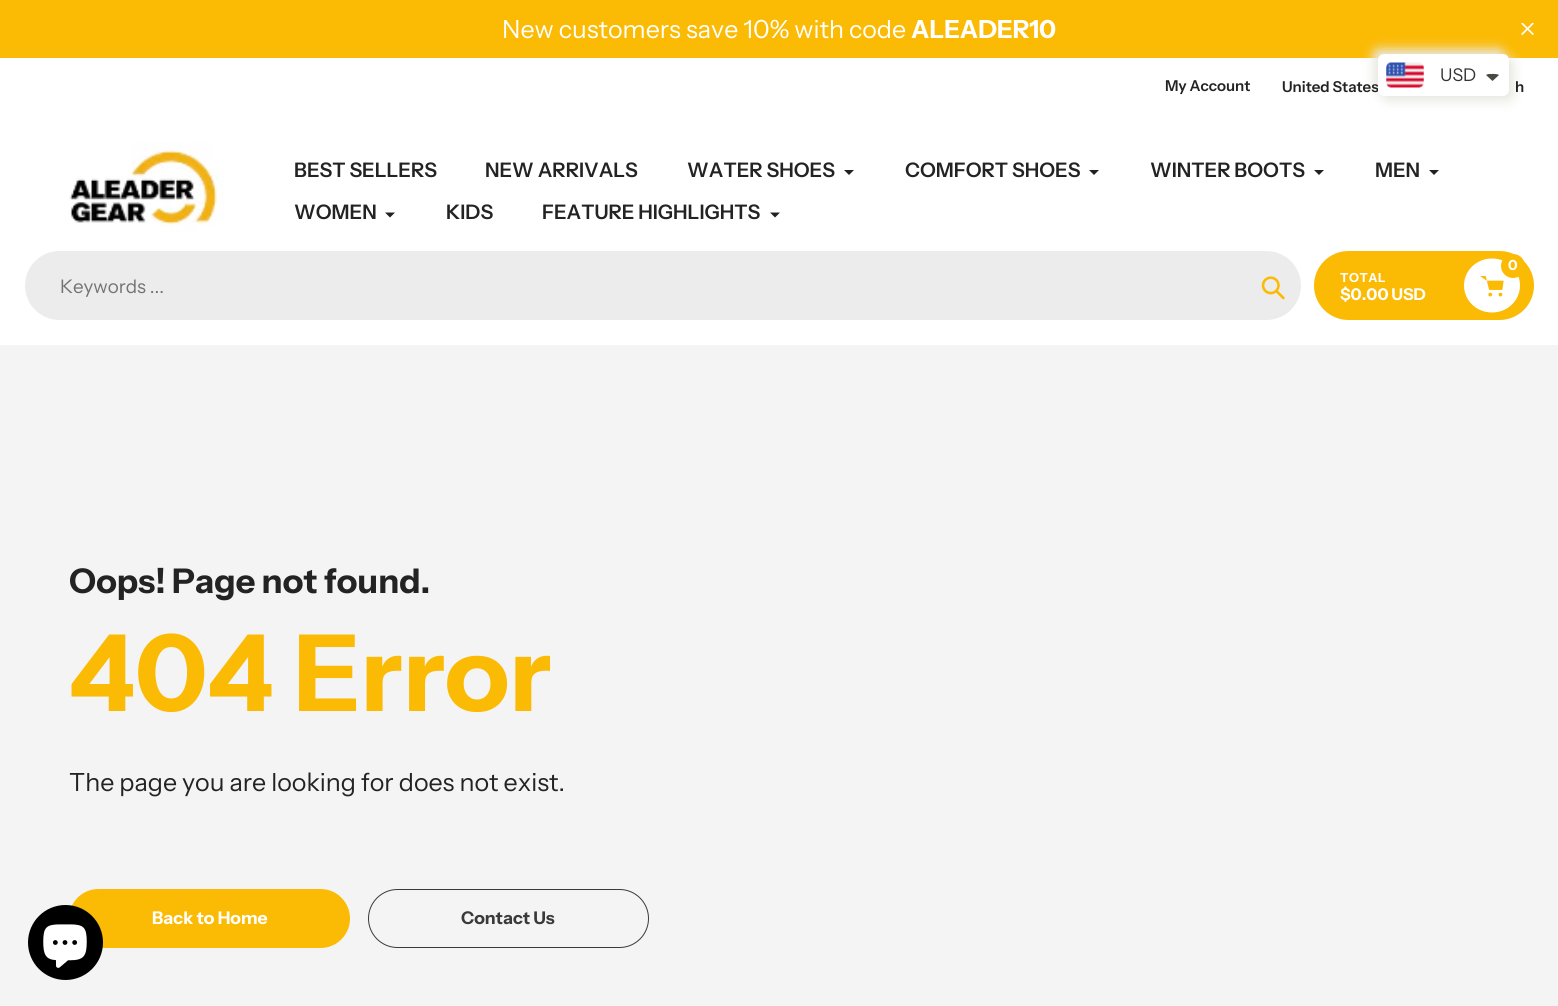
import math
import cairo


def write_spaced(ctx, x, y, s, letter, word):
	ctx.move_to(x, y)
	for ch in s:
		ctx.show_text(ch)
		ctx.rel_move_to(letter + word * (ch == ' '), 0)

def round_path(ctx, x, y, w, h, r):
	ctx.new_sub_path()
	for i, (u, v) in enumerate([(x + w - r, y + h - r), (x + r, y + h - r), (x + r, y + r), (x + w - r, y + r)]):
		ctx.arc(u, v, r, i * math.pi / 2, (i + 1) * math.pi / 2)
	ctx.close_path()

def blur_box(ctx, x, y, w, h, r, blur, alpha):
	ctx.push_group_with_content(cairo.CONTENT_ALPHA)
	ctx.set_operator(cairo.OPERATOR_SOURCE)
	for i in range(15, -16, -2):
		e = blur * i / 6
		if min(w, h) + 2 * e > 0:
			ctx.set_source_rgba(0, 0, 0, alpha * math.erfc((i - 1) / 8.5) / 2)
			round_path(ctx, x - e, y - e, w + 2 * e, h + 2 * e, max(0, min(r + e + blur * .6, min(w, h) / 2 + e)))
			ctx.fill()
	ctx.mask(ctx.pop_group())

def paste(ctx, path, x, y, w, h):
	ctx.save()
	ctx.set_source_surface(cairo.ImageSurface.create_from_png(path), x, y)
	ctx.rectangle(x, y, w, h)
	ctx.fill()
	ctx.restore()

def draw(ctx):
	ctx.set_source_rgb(0.957, 0.957, 0.957)
	ctx.paint()
	ctx.set_source_rgb(0.984, 0.729, 0.012)
	ctx.rectangle(0, 0, 1558, 58)
	ctx.fill()
	ctx.select_font_face('Instrument Sans')
	ctx.set_font_size(25)
	ctx.set_source_rgb(1, 1, 1)
	ctx.move_to(502, 38)
	ctx.show_text('New customers save 10% with code')
	ctx.select_font_face('Instrument Sans', cairo.FONT_SLANT_NORMAL, cairo.FONT_WEIGHT_BOLD)
	ctx.move_to(911, 38)
	ctx.show_text('ALEADER10')
	paste(ctx, 'media/1.png', 1521, 23, 13, 12)
	ctx.rectangle(0, 58, 1558, 287)
	ctx.fill()
	ctx.set_source_rgb(0.91, 0.91, 0.886)
	blur_box(ctx, 1373, 49, 131, 42, 6, 5.5, 1)
	blur_box(ctx, 1383, 59, 131, 42, 6, 5.5, 1)
	ctx.select_font_face('Instrument Sans SemiBold')
	ctx.set_font_size(15)
	ctx.set_source_rgb(0.137, 0.137, 0.137)
	ctx.move_to(1282, 92)
	ctx.show_text('United States')
	ctx.set_source_rgb(1, 1, 1)
	round_path(ctx, 1378, 54, 131, 42, 6)
	ctx.fill()
	paste(ctx, 'media/2.png', 1386, 62, 38, 26)
	ctx.select_font_face('Instrument Sans')
	ctx.set_font_size(17.5)
	ctx.set_source_rgb(0.2, 0.2, 0.2)
	ctx.move_to(1440, 81)
	ctx.show_text('USD')
	ctx.set_source_rgb(0.278, 0.286, 0.259)
	ctx.new_path()
	ctx.move_to(1489, 74)
	ctx.curve_to(1491.5, 74, 1497, 73.5, 1499, 75)
	ctx.line_to(1492.5, 81)
	ctx.line_to(1486, 75)
	ctx.curve_to(1487, 74.5, 1488, 74, 1489, 74)
	ctx.close_path()
	ctx.fill()
	ctx.select_font_face('Instrument Sans SemiBold')
	ctx.set_font_size(15)
	ctx.set_source_rgb(0.137, 0.137, 0.137)
	ctx.move_to(1165, 91)
	ctx.show_text('My Account')
	ctx.move_to(1515, 92)
	ctx.show_text('h')
	paste(ctx, 'media/3.png', 69, 142, 155, 91)
	ctx.set_font_size(20)
	for x, y, s in [
		(294, 177, 'BEST SELLERS'),
		(485, 177, 'NEW ARRIVALS'),
		(687, 177, 'WATER SHOES'),
	]:
		ctx.move_to(x, y)
		ctx.show_text(s)
	ctx.set_source_rgb(0.129, 0.129, 0.129)
	ctx.new_path()
	ctx.move_to(854, 170)
	ctx.line_to(849, 175)
	ctx.line_to(844, 170)
	ctx.fill()
	ctx.set_source_rgb(0.137, 0.137, 0.137)
	ctx.move_to(905, 177)
	ctx.show_text('COMFORT SHOES')
	ctx.set_source_rgb(0.129, 0.129, 0.129)
	ctx.new_path()
	ctx.move_to(1099, 170)
	ctx.line_to(1094, 175)
	ctx.line_to(1089, 170)
	ctx.fill()
	ctx.set_source_rgb(0.137, 0.137, 0.137)
	ctx.move_to(1150, 177)
	ctx.show_text('WINTER BOOTS')
	ctx.set_source_rgb(0.129, 0.129, 0.129)
	ctx.new_path()
	ctx.move_to(1324, 170)
	ctx.line_to(1319, 175)
	ctx.line_to(1314, 170)
	ctx.fill()
	ctx.set_source_rgb(0.137, 0.137, 0.137)
	ctx.move_to(1375, 177)
	ctx.show_text('MEN')
	ctx.set_source_rgb(0.129, 0.129, 0.129)
	ctx.new_path()
	ctx.move_to(1439, 170)
	ctx.line_to(1434, 175)
	ctx.line_to(1429, 170)
	ctx.fill()
	ctx.set_source_rgb(0.137, 0.137, 0.137)
	ctx.move_to(294, 219)
	ctx.show_text('WOMEN')
	ctx.set_source_rgb(0.129, 0.129, 0.129)
	ctx.new_path()
	ctx.move_to(395, 212.5)
	ctx.line_to(390, 217.5)
	ctx.line_to(385, 212.5)
	ctx.fill()
	ctx.set_source_rgb(0.137, 0.137, 0.137)
	ctx.move_to(446, 219)
	ctx.show_text('KIDS')
	ctx.move_to(542, 219)
	ctx.show_text('FEATURE HIGHLIGHTS')
	ctx.set_source_rgb(0.129, 0.129, 0.129)
	ctx.new_path()
	ctx.move_to(780, 212.5)
	ctx.line_to(775, 217.5)
	ctx.line_to(770, 212.5)
	ctx.fill()
	ctx.set_source_rgb(0.922, 0.922, 0.922)
	round_path(ctx, 25, 251, 1276, 69, 34.5)
	ctx.fill()
	ctx.select_font_face('Instrument Sans')
	ctx.set_font_size(18.75)
	ctx.set_source_rgb(0.451, 0.451, 0.451)
	ctx.move_to(60, 293)
	ctx.show_text('Keywords ...')
	paste(ctx, 'media/4.png', 1261, 276, 24, 24)
	ctx.set_source_rgb(0.984, 0.729, 0.012)
	round_path(ctx, 1314, 251, 220, 69, 34.5)
	ctx.fill()
	ctx.set_source_rgb(1, 1, 1)
	ctx.new_path()
	ctx.move_to(1492, 258.5)
	ctx.curve_to(1507.5, 258.5, 1520, 270.5, 1520, 285.5)
	ctx.curve_to(1520, 300.5, 1507.5, 312.5, 1492, 312.5)
	ctx.curve_to(1476.5, 312.5, 1464, 300.5, 1464, 285.5)
	ctx.curve_to(1464, 270.5, 1476.5, 258.5, 1492, 258.5)
	ctx.close_path()
	ctx.fill()
	paste(ctx, 'media/5.png', 1480, 276, 24, 21)
	ctx.set_source_rgb(0.984, 0.729, 0.012)
	ctx.arc(1513, 266, 12, 0, 2 * math.pi)
	ctx.fill()
	ctx.select_font_face('Instrument Sans', cairo.FONT_SLANT_NORMAL, cairo.FONT_WEIGHT_BOLD)
	ctx.set_font_size(14)
	ctx.set_source_rgb(1, 1, 1)
	ctx.move_to(1508, 270)
	ctx.show_text('0')
	ctx.set_font_size(12.5)
	write_spaced(ctx, 1340, 282, 'TOTAL', 0.5, 0)
	ctx.set_font_size(16.25)
	ctx.move_to(1340, 300)
	ctx.show_text('$0.00 USD')
	ctx.set_font_size(34)
	ctx.set_source_rgb(0.137, 0.137, 0.137)
	ctx.move_to(69, 593)
	ctx.show_text('Oops! Page not found.')
	ctx.set_font_size(106.25)
	ctx.set_source_rgb(0.984, 0.729, 0.012)
	ctx.move_to(69, 711)
	ctx.show_text('404 Error')
	ctx.select_font_face('Instrument Sans')
	ctx.set_font_size(25)
	ctx.set_source_rgb(0.137, 0.137, 0.137)
	ctx.move_to(69, 791)
	ctx.show_text('The page you are looking for does not exist.')
	ctx.set_source_rgb(0.984, 0.729, 0.012)
	round_path(ctx, 69, 889, 281, 59, 29.5)
	ctx.fill()
	ctx.select_font_face('Instrument Sans', cairo.FONT_SLANT_NORMAL, cairo.FONT_WEIGHT_BOLD)
	ctx.set_font_size(17.5)
	ctx.set_source_rgb(1, 1, 1)
	ctx.move_to(152, 924)
	ctx.show_text('Back to Home')
	round_path(ctx, 368.5, 889.5, 280, 58, 29)
	ctx.set_source_rgb(0.227, 0.227, 0.227)
	ctx.set_line_width(1)
	ctx.stroke()
	ctx.move_to(461, 924)
	ctx.show_text('Contact Us')
	ctx.set_source_rgb(0, 0, 0)
	ctx.new_path()
	ctx.arc(65.5, 942.5, 37.5, 0, 2 * math.pi)
	ctx.fill()
	paste(ctx, 'media/6.png', 43, 924, 44, 44)


surface = cairo.ImageSurface(cairo.FORMAT_RGB24, 1558, 1006)
ctx = cairo.Context(surface)
options = cairo.FontOptions()
options.set_hint_metrics(cairo.HINT_METRICS_OFF)
options.set_hint_style(cairo.HINT_STYLE_NONE)
ctx.set_font_options(options)
ctx.set_miter_limit(4)
draw(ctx)
surface.write_to_png('image.png')
